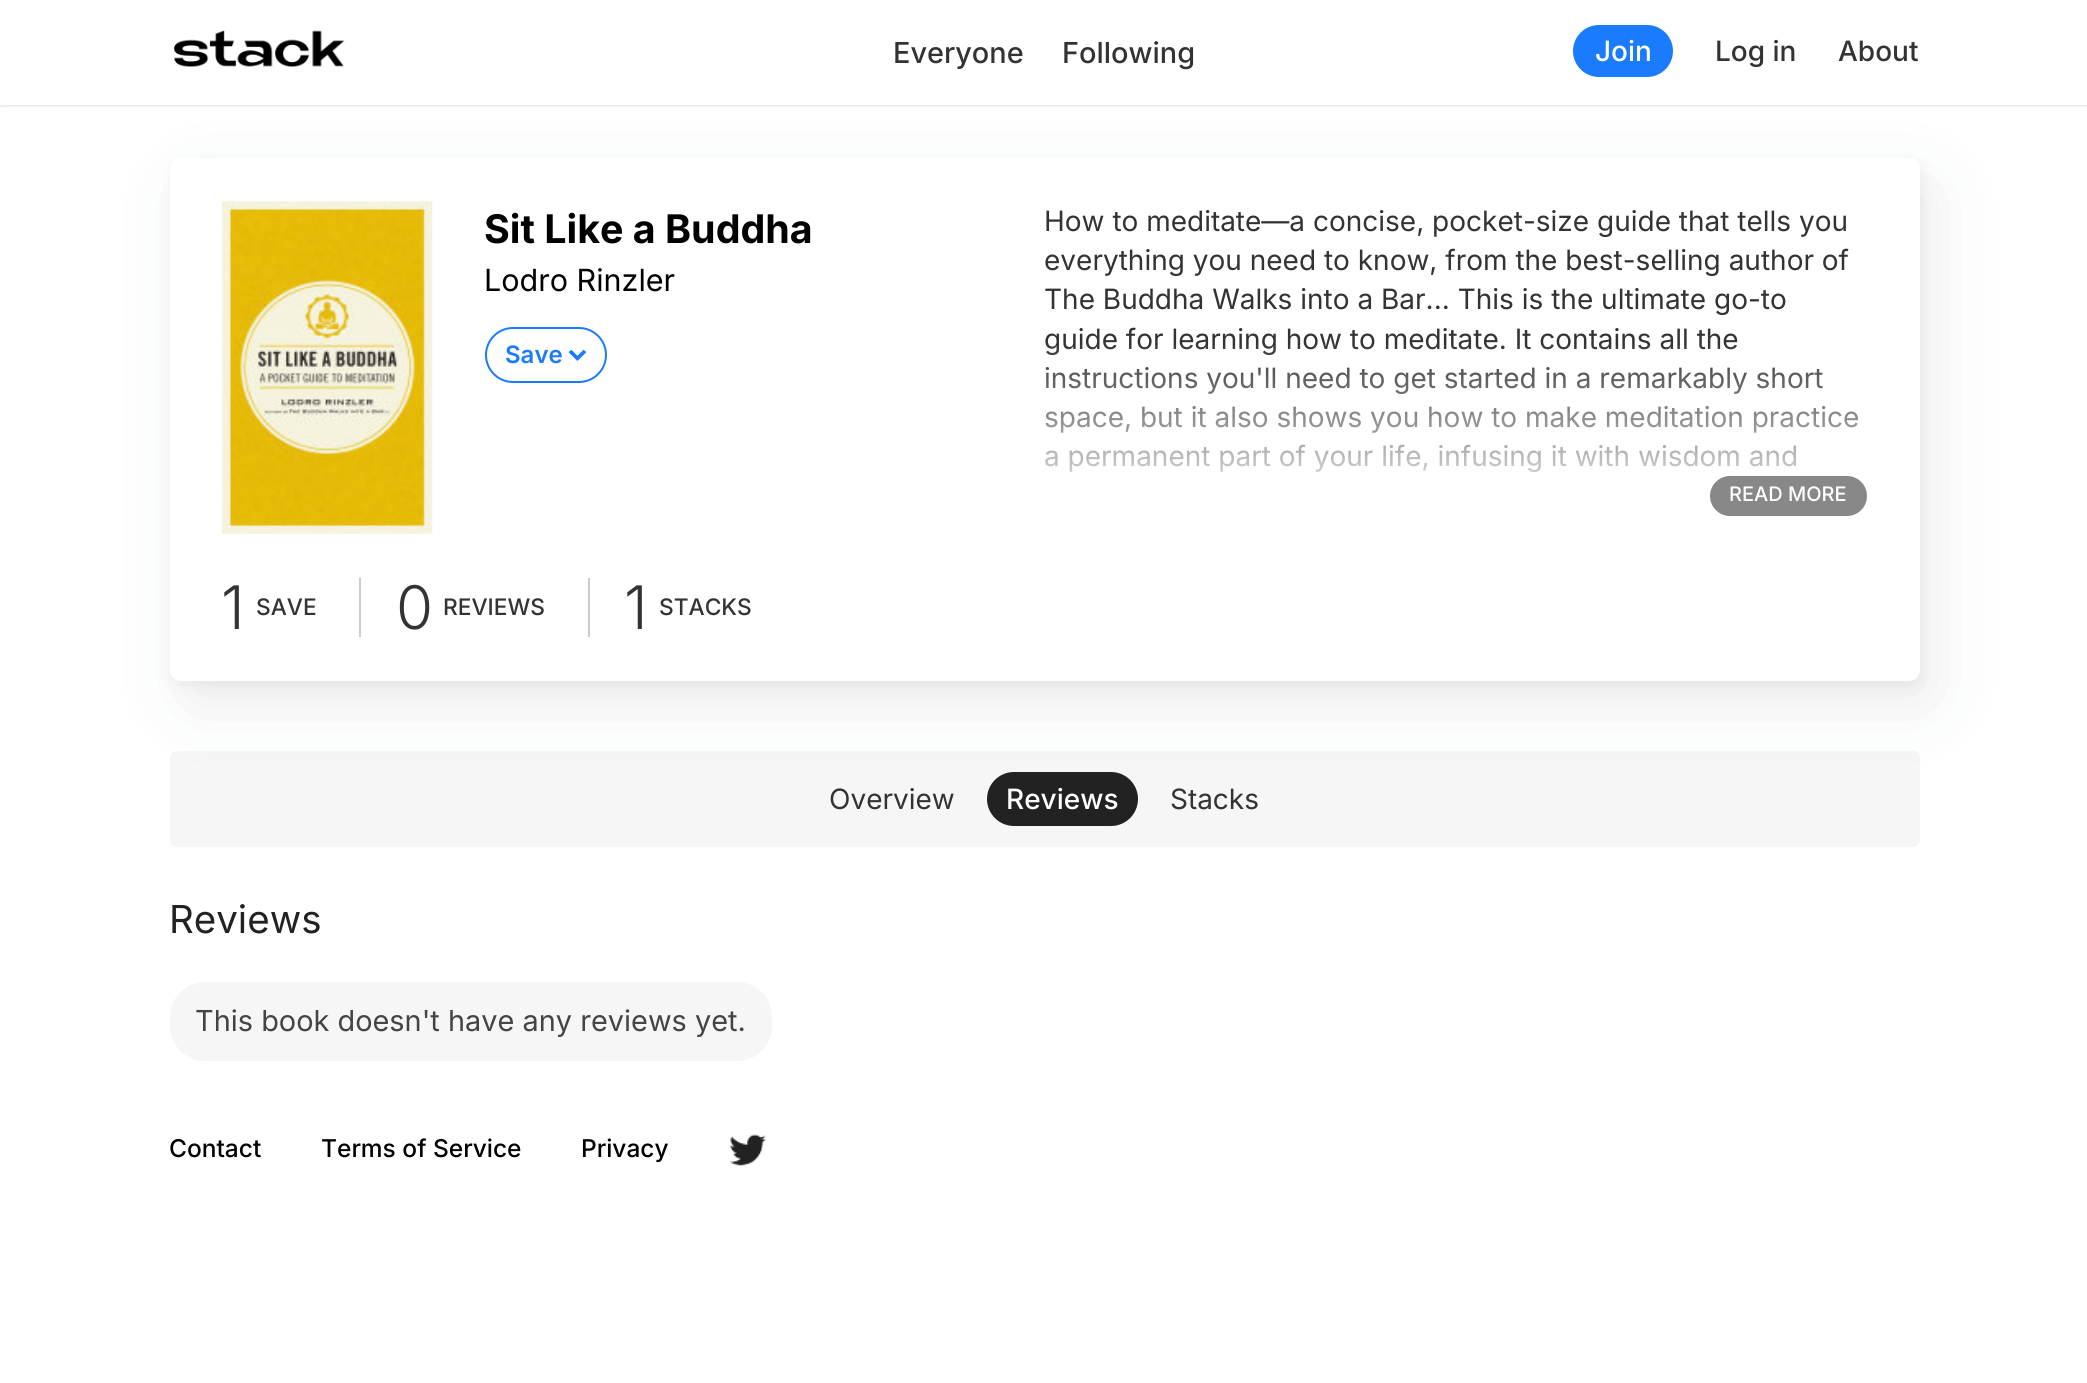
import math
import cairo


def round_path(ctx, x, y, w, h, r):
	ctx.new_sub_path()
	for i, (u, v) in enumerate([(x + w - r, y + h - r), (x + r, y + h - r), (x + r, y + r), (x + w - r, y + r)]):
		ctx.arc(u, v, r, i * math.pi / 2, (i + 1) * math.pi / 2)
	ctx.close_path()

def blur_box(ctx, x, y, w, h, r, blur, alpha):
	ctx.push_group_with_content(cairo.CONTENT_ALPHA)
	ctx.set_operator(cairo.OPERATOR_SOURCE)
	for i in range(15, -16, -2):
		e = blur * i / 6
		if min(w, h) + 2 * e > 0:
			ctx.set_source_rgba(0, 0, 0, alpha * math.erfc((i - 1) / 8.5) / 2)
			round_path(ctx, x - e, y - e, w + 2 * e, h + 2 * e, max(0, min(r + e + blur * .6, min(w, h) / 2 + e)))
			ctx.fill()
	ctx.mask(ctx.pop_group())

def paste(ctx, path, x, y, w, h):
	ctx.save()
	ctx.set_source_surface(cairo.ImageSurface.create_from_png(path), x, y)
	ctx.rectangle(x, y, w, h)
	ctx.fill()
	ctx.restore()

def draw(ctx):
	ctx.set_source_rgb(1, 1, 1)
	ctx.paint()
	ctx.save()
	ctx.rectangle(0, 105, 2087, 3)
	ctx.clip()
	ctx.set_source_rgb(0, 0, 0)
	blur_box(ctx, 0, 0, 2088, 105, 0, 2, 0.2)
	ctx.restore()
	paste(ctx, 'media/1.png', 173, 30, 172, 38)
	ctx.select_font_face('Inter Medium')
	ctx.set_font_size(28.9)
	ctx.set_source_rgb(0.2, 0.2, 0.2)
	ctx.move_to(893, 63)
	ctx.show_text('Everyone')
	ctx.move_to(1062, 63)
	ctx.show_text('Following')
	ctx.set_source_rgb(0.106, 0.482, 1)
	round_path(ctx, 1573, 25, 100, 52, 26)
	ctx.fill()
	ctx.set_font_size(28)
	ctx.set_source_rgb(1, 1, 1)
	ctx.move_to(1595, 61)
	ctx.show_text('Join')
	ctx.set_source_rgb(0.2, 0.2, 0.2)
	ctx.move_to(1715, 61)
	ctx.show_text('Log in')
	ctx.move_to(1838, 61)
	ctx.show_text('About')
	ctx.set_source_rgb(0.153, 0.173, 0.192)
	blur_box(ctx, 172, 163, 1750, 523, 11, 7, 0.06)
	ctx.set_source_rgb(0.961, 0.961, 0.961)
	round_path(ctx, 170, 751, 1750, 96, 7)
	ctx.fill()
	ctx.set_source_rgb(0.133, 0.133, 0.133)
	round_path(ctx, 987, 772, 151, 54, 27)
	ctx.fill()
	ctx.set_source_rgb(0.153, 0.173, 0.192)
	blur_box(ctx, 184, 182, 1750, 523, 11, 33, 0.09)
	ctx.set_source_rgb(1, 1, 1)
	round_path(ctx, 170, 158, 1750, 523, 11)
	ctx.fill()
	paste(ctx, 'media/2.png', 222, 201, 211, 333)
	ctx.select_font_face('Inter', cairo.FONT_SLANT_NORMAL, cairo.FONT_WEIGHT_BOLD)
	ctx.set_font_size(39.4)
	ctx.set_source_rgb(0, 0, 0)
	ctx.move_to(484, 243)
	ctx.show_text('Sit Like a Buddha')
	ctx.select_font_face('Inter')
	ctx.set_font_size(30.5)
	ctx.move_to(484, 291)
	ctx.show_text('Lodro Rinzler')
	round_path(ctx, 486, 328, 120, 54, 27)
	ctx.set_source_rgb(0.106, 0.482, 1)
	ctx.stroke()
	ctx.select_font_face('Inter SemiBold')
	ctx.set_font_size(24)
	ctx.move_to(505, 363)
	ctx.show_text('Save')
	paste(ctx, 'media/3.png', 568, 349, 19, 12)
	ctx.select_font_face('Inter')
	ctx.set_font_size(28)
	ctx.set_source_rgb(0.2, 0.2, 0.2)
	for x, y, s in [
		(1044, 231, 'How to meditate—a concise, pocket-size guide that tells you'),
		(1044, 270, 'everything you need to know, from the best-selling author of'),
		(1044, 309, 'The Buddha Walks into a Bar... This is the ultimate go-to'),
		(1044, 349, 'guide for learning how to meditate. It contains all the'),
		(1044, 388, 'instructions you\'ll need to get started in a remarkably short'),
		(1044, 427, 'space, but it also shows you how to make meditation practice'),
		(1044, 466, 'a permanent part of your life, infusing it with wisdom and'),
	]:
		ctx.move_to(x, y)
		ctx.show_text(s)
	gradient = cairo.LinearGradient(1456, 341, 1456, 516)
	gradient.add_color_stop_rgba(0, 1, 1, 1, 0)
	gradient.add_color_stop_rgba(1, 1, 1, 1, 1)
	ctx.set_source(gradient)
	ctx.rectangle(1045, 345, 813, 127)
	ctx.fill()
	ctx.set_source_rgb(0.533, 0.533, 0.533)
	round_path(ctx, 1710, 476, 157, 40, 20)
	ctx.fill()
	ctx.select_font_face('Inter Medium')
	ctx.set_font_size(20)
	ctx.set_source_rgb(1, 1, 1)
	ctx.move_to(1729, 501)
	ctx.show_text('READ MORE')
	ctx.select_font_face('Inter Light')
	ctx.set_font_size(60)
	ctx.set_source_rgb(0.2, 0.2, 0.2)
	ctx.move_to(221, 629)
	ctx.show_text('1')
	ctx.select_font_face('Inter Medium')
	ctx.set_font_size(22.75)
	ctx.move_to(256, 615)
	ctx.show_text('SAVE')
	ctx.set_source_rgb(0.8, 0.8, 0.8)
	ctx.rectangle(359, 578, 2, 59)
	ctx.fill()
	ctx.select_font_face('Inter Light')
	ctx.set_font_size(60)
	ctx.set_source_rgb(0.2, 0.2, 0.2)
	ctx.move_to(396, 629)
	ctx.show_text('0')
	ctx.select_font_face('Inter Medium')
	ctx.set_font_size(22.75)
	ctx.move_to(443, 615)
	ctx.show_text('REVIEWS')
	ctx.set_source_rgb(0.8, 0.8, 0.8)
	ctx.rectangle(588, 578, 2, 59)
	ctx.fill()
	ctx.select_font_face('Inter Light')
	ctx.set_font_size(60)
	ctx.set_source_rgb(0.2, 0.2, 0.2)
	ctx.move_to(624, 629)
	ctx.show_text('1')
	ctx.select_font_face('Inter Medium')
	ctx.set_font_size(22.75)
	ctx.move_to(659, 615)
	ctx.show_text('STACKS')
	ctx.select_font_face('Inter')
	ctx.set_font_size(28)
	ctx.move_to(829, 809)
	ctx.show_text('Overview')
	ctx.select_font_face('Inter Medium')
	ctx.set_source_rgb(1, 1, 1)
	ctx.move_to(1006, 809)
	ctx.show_text('Reviews')
	ctx.select_font_face('Inter')
	ctx.set_source_rgb(0.2, 0.2, 0.2)
	ctx.move_to(1170, 809)
	ctx.show_text('Stacks')
	ctx.set_font_size(38.5)
	ctx.set_source_rgb(0.133, 0.133, 0.133)
	ctx.move_to(169, 933)
	ctx.show_text('Reviews')
	ctx.set_source_rgb(0.961, 0.961, 0.961)
	round_path(ctx, 170, 982, 602, 79, 35)
	ctx.fill()
	ctx.set_font_size(28.9)
	ctx.set_source_rgb(0.267, 0.267, 0.267)
	ctx.move_to(195, 1031)
	ctx.show_text('This book doesn\'t have any reviews yet.')
	ctx.select_font_face('Inter Medium')
	ctx.set_font_size(24.5)
	ctx.set_source_rgb(0, 0, 0)
	for x, y, s in [
		(169, 1157, 'Contact'),
		(321, 1157, 'Terms of Service'),
		(581, 1157, 'Privacy'),
	]:
		ctx.move_to(x, y)
		ctx.show_text(s)
	paste(ctx, 'media/4.png', 729, 1134, 38, 32)


surface = cairo.ImageSurface(cairo.FORMAT_RGB24, 2087, 1383)
ctx = cairo.Context(surface)
options = cairo.FontOptions()
options.set_hint_metrics(cairo.HINT_METRICS_OFF)
options.set_hint_style(cairo.HINT_STYLE_NONE)
ctx.set_font_options(options)
ctx.set_miter_limit(4)
draw(ctx)
surface.write_to_png('image.png')
